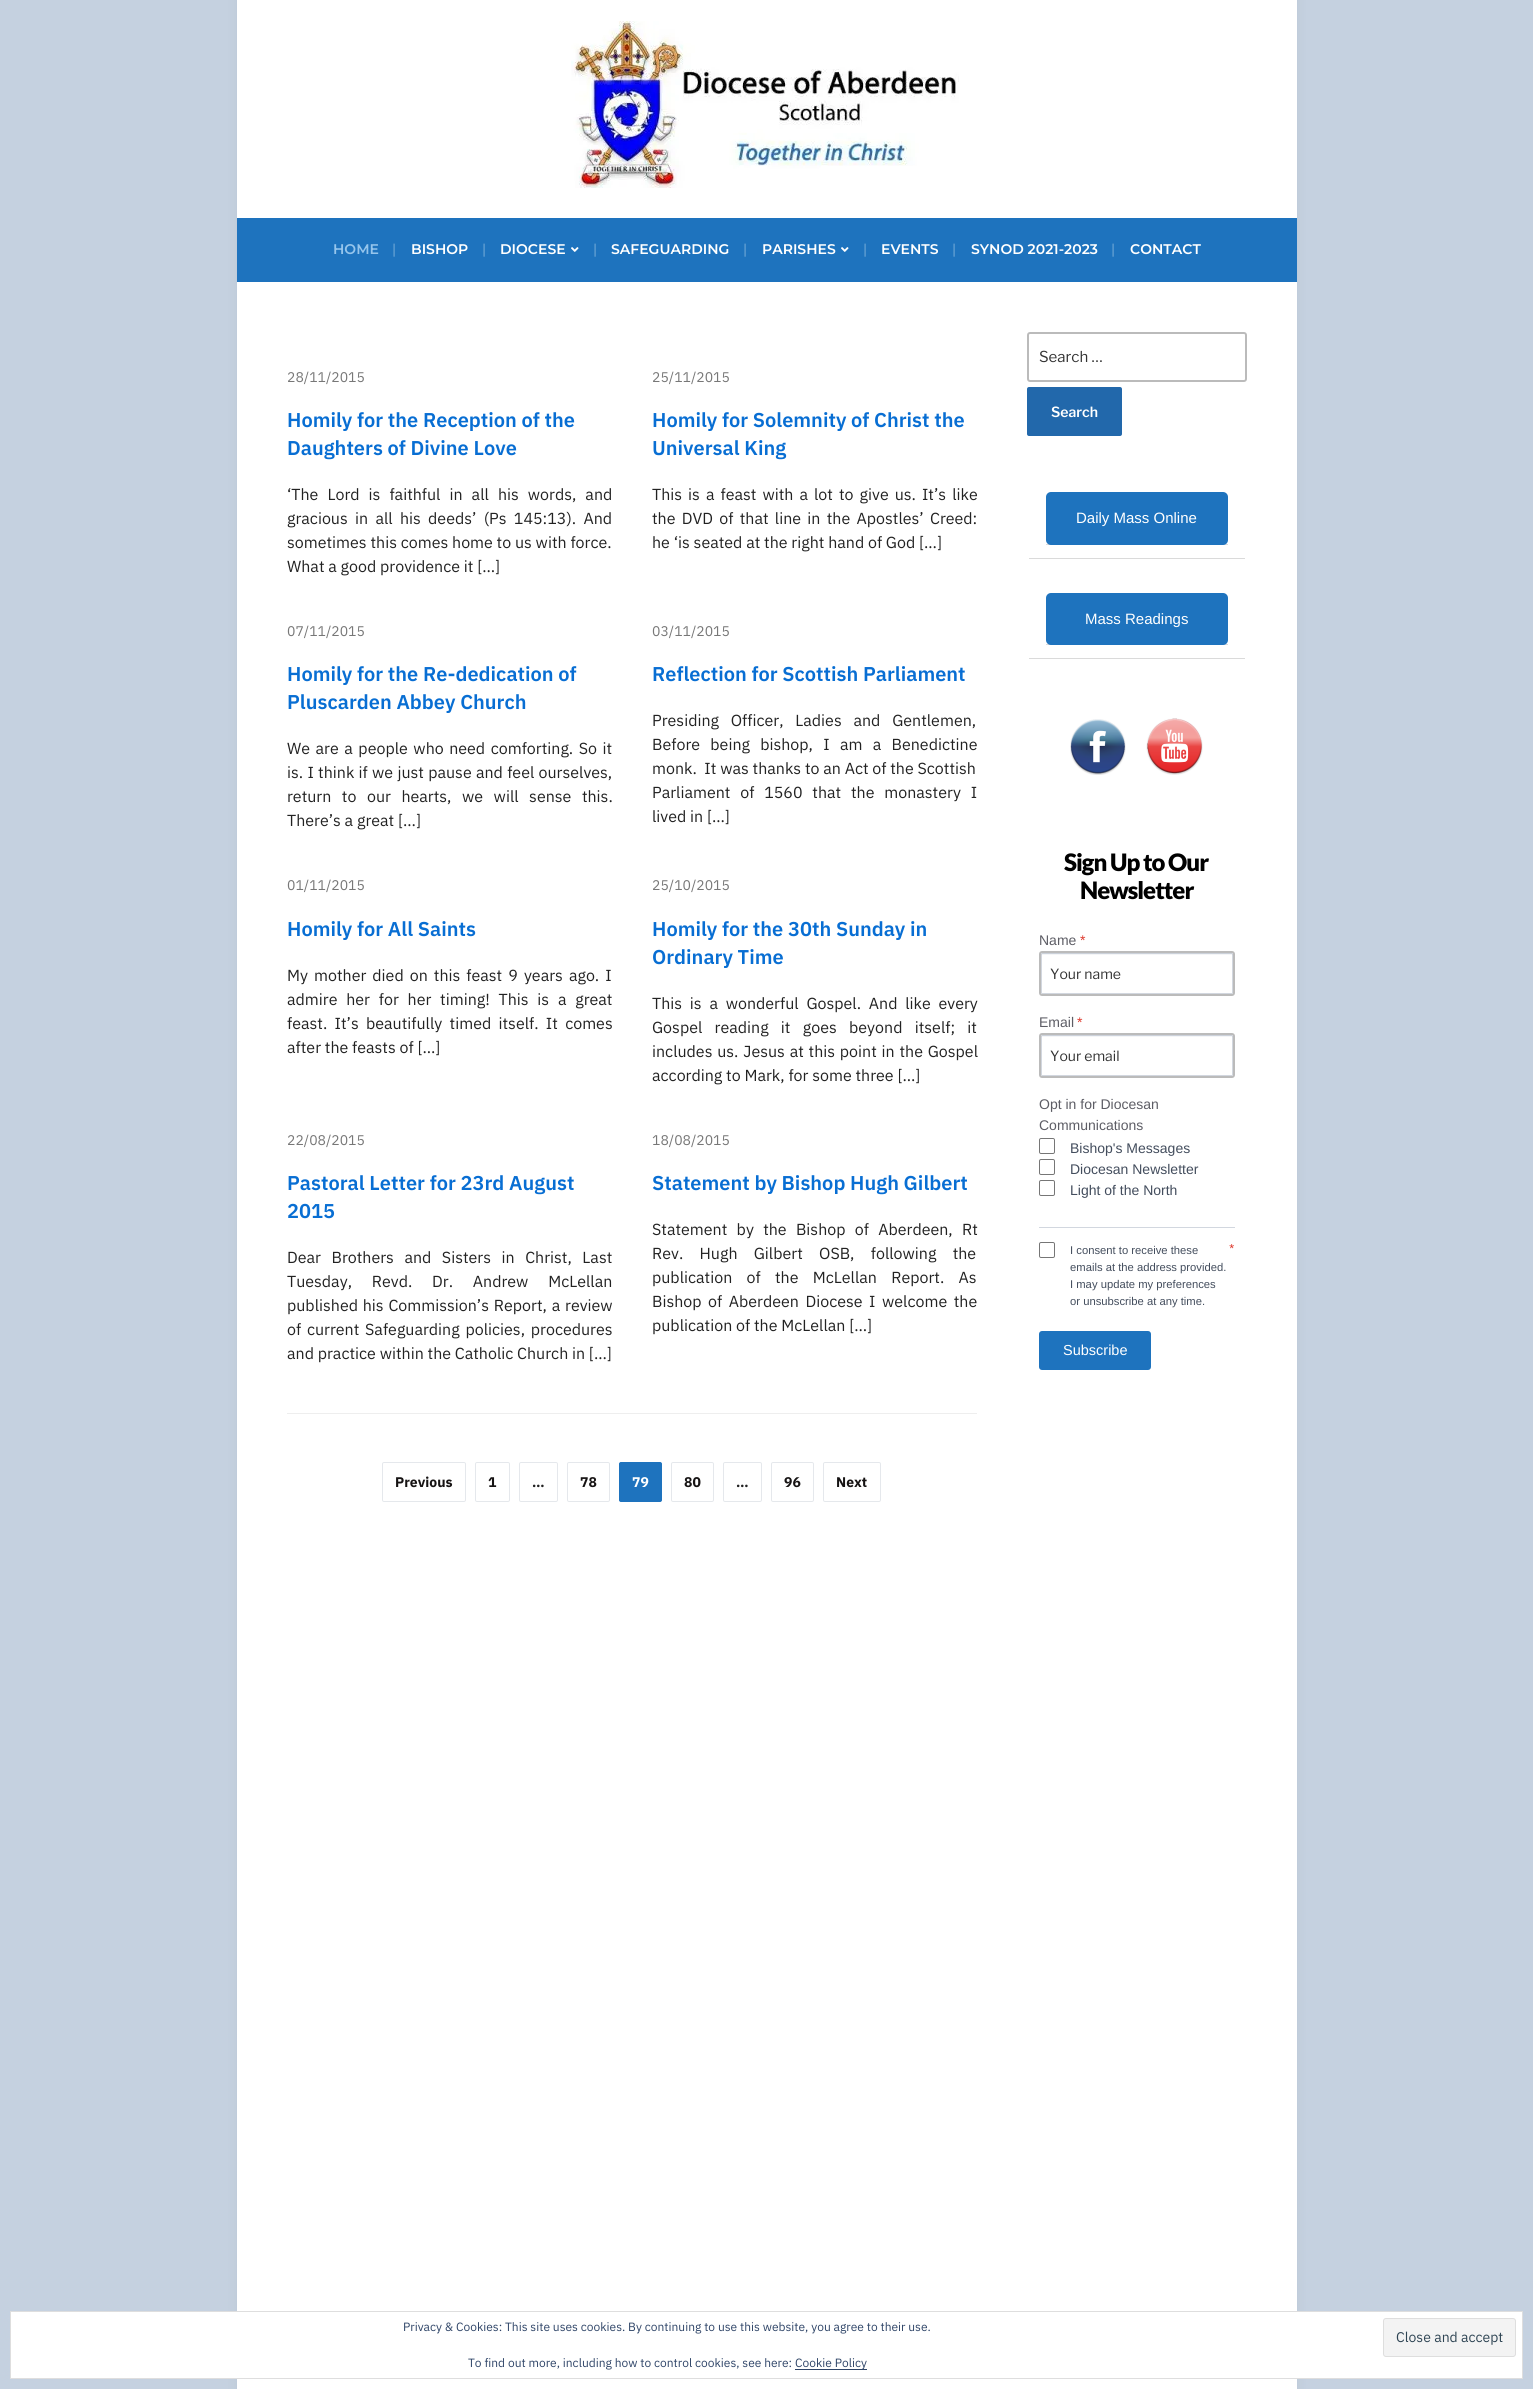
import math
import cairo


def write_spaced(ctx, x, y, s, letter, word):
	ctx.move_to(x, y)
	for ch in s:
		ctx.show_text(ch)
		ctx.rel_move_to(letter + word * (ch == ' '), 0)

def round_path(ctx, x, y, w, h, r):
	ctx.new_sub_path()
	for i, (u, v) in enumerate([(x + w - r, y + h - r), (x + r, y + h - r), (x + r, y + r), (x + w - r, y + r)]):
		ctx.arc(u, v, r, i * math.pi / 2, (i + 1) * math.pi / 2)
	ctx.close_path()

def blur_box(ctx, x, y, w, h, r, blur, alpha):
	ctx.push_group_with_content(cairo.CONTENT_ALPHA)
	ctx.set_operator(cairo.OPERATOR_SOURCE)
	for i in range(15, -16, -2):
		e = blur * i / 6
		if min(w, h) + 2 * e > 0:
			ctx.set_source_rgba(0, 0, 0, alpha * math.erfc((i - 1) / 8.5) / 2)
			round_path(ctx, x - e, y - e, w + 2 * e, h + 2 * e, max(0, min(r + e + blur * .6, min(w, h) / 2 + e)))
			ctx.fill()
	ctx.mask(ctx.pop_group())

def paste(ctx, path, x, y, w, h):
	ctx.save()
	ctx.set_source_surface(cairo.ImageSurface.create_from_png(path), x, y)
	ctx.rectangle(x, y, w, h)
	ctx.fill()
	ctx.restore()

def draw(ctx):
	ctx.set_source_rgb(0.773, 0.82, 0.878)
	ctx.paint()
	ctx.set_source_rgb(0, 0, 0)
	blur_box(ctx, 237, -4, 1060, 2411, 0, 6, 0.05)
	ctx.set_source_rgb(1, 1, 1)
	ctx.rectangle(237, 0, 1060, 2389)
	ctx.fill()
	paste(ctx, 'media/1.png', 571, 21, 388, 167)
	ctx.set_source_rgb(0.118, 0.451, 0.745)
	ctx.rectangle(237, 218, 1060, 64)
	ctx.fill()
	ctx.select_font_face('Montserrat Thin')
	ctx.set_font_size(14)
	ctx.set_source_rgb(0.588, 0.773, 0.925)
	ctx.move_to(333, 254)
	ctx.show_text('HOME')
	ctx.set_source_rgb(0.337, 0.588, 0.808)
	ctx.move_to(392, 254)
	ctx.show_text('|')
	ctx.set_source_rgb(1, 1, 1)
	ctx.move_to(411, 254)
	ctx.show_text('BISHOP')
	ctx.set_source_rgb(0.337, 0.588, 0.808)
	ctx.move_to(482, 254)
	ctx.show_text('|')
	ctx.set_source_rgb(1, 1, 1)
	ctx.move_to(500, 254)
	ctx.show_text('DIOCESE')
	paste(ctx, 'media/2.png', 571, 247, 8, 5)
	ctx.set_source_rgb(0.337, 0.588, 0.808)
	ctx.move_to(593, 254)
	ctx.show_text('|')
	ctx.set_source_rgb(1, 1, 1)
	ctx.move_to(611, 254)
	ctx.show_text('SAFEGUARDING')
	ctx.set_source_rgb(0.337, 0.588, 0.808)
	ctx.move_to(743, 254)
	ctx.show_text('|')
	ctx.set_source_rgb(1, 1, 1)
	ctx.move_to(762, 254)
	ctx.show_text('PARISHES')
	paste(ctx, 'media/2.png', 841, 247, 8, 5)
	ctx.set_source_rgb(0.337, 0.588, 0.808)
	ctx.move_to(863, 254)
	ctx.show_text('|')
	ctx.set_source_rgb(1, 1, 1)
	ctx.move_to(881, 254)
	ctx.show_text('EVENTS')
	ctx.set_source_rgb(0.337, 0.588, 0.808)
	ctx.move_to(952, 254)
	ctx.show_text('|')
	ctx.set_source_rgb(1, 1, 1)
	ctx.move_to(971, 254)
	ctx.show_text('SYNOD 2021-2023')
	ctx.set_source_rgb(0.337, 0.588, 0.808)
	ctx.move_to(1111, 254)
	ctx.show_text('|')
	ctx.set_source_rgb(1, 1, 1)
	ctx.move_to(1130, 254)
	ctx.show_text('CONTACT')
	ctx.select_font_face('IBM Plex Sans')
	ctx.set_source_rgb(0.467, 0.467, 0.467)
	ctx.move_to(287, 382)
	ctx.show_text('28/11/2015')
	ctx.select_font_face('IBM Plex Sans SemiBold')
	ctx.set_font_size(20)
	ctx.set_source_rgb(0.035, 0.431, 0.827)
	ctx.move_to(287, 427)
	ctx.show_text('Homily for the Reception of the')
	ctx.move_to(287, 455)
	ctx.show_text('Daughters of Divine Love')
	ctx.select_font_face('IBM Plex Sans')
	ctx.set_font_size(16)
	ctx.set_source_rgb(0.133, 0.133, 0.133)
	write_spaced(ctx, 287, 500, '‘The Lord is faithful in all his words, and', 0, 5.25)
	write_spaced(ctx, 287, 524, 'gracious in all his deeds’ (Ps 145:13). And', 0, 3.5)
	ctx.move_to(287, 548)
	ctx.show_text('sometimes this comes home to us with force.')
	ctx.move_to(287, 572)
	ctx.show_text('What a good providence it […]')
	ctx.set_font_size(14)
	ctx.set_source_rgb(0.467, 0.467, 0.467)
	ctx.move_to(652, 382)
	ctx.show_text('25/11/2015')
	ctx.select_font_face('IBM Plex Sans SemiBold')
	ctx.set_font_size(20)
	ctx.set_source_rgb(0.035, 0.431, 0.827)
	ctx.move_to(652, 427)
	ctx.show_text('Homily for Solemnity of Christ the')
	ctx.move_to(652, 455)
	ctx.show_text('Universal King')
	ctx.select_font_face('IBM Plex Sans')
	ctx.set_font_size(16)
	ctx.set_source_rgb(0.133, 0.133, 0.133)
	write_spaced(ctx, 652, 500, 'This is a feast with a lot to give us. It’s like', 0, 2.25)
	write_spaced(ctx, 652, 524, 'the DVD of that line in the Apostles’ Creed:', 0, 2.5)
	ctx.move_to(652, 548)
	ctx.show_text('he ‘is seated at the right hand of God […]')
	ctx.set_font_size(14)
	ctx.set_source_rgb(0.467, 0.467, 0.467)
	ctx.move_to(287, 636)
	ctx.show_text('07/11/2015')
	ctx.select_font_face('IBM Plex Sans SemiBold')
	ctx.set_font_size(20)
	ctx.set_source_rgb(0.035, 0.431, 0.827)
	ctx.move_to(287, 681)
	ctx.show_text('Homily for the Re-dedication of')
	ctx.move_to(287, 709)
	ctx.show_text('Pluscarden Abbey Church')
	ctx.select_font_face('IBM Plex Sans')
	ctx.set_font_size(16)
	ctx.set_source_rgb(0.133, 0.133, 0.133)
	write_spaced(ctx, 287, 754, 'We are a people who need comforting. So it', 0, 1.75)
	write_spaced(ctx, 287, 778, 'is. I think if we just pause and feel ourselves,', 0, 0.5)
	write_spaced(ctx, 287, 802, 'return to our hearts, we will sense this.', 0, 6.75)
	ctx.move_to(287, 826)
	ctx.show_text('There’s a great […]')
	ctx.set_font_size(14)
	ctx.set_source_rgb(0.467, 0.467, 0.467)
	ctx.move_to(652, 636)
	ctx.show_text('03/11/2015')
	ctx.select_font_face('IBM Plex Sans SemiBold')
	ctx.set_font_size(20)
	ctx.set_source_rgb(0.035, 0.431, 0.827)
	ctx.move_to(652, 681)
	ctx.show_text('Reflection for Scottish Parliament')
	ctx.select_font_face('IBM Plex Sans')
	ctx.set_font_size(16)
	ctx.set_source_rgb(0.133, 0.133, 0.133)
	write_spaced(ctx, 652, 726, 'Presiding Officer, Ladies and Gentlemen,', 0, 8)
	write_spaced(ctx, 652, 750, 'Before being bishop, I am a Benedictine', 0, 6.5)
	ctx.move_to(652, 774)
	ctx.show_text('monk.  It was thanks to an Act of the Scottish')
	write_spaced(ctx, 652, 798, 'Parliament of 1560 that the monastery I', 0, 6)
	ctx.move_to(652, 822)
	ctx.show_text('lived in […]')
	ctx.set_font_size(14)
	ctx.set_source_rgb(0.467, 0.467, 0.467)
	ctx.move_to(287, 890)
	ctx.show_text('01/11/2015')
	ctx.select_font_face('IBM Plex Sans SemiBold')
	ctx.set_font_size(20)
	ctx.set_source_rgb(0.035, 0.431, 0.827)
	ctx.move_to(287, 936)
	ctx.show_text('Homily for All Saints')
	ctx.select_font_face('IBM Plex Sans')
	ctx.set_font_size(16)
	ctx.set_source_rgb(0.133, 0.133, 0.133)
	write_spaced(ctx, 287, 981, 'My mother died on this feast 9 years ago. I', 0, 2.25)
	write_spaced(ctx, 287, 1005, 'admire her for her timing! This is a great', 0, 5)
	write_spaced(ctx, 287, 1029, 'feast. It’s beautifully timed itself. It comes', 0, 3.5)
	ctx.move_to(287, 1053)
	ctx.show_text('after the feasts of […]')
	ctx.set_font_size(14)
	ctx.set_source_rgb(0.467, 0.467, 0.467)
	ctx.move_to(652, 890)
	ctx.show_text('25/10/2015')
	ctx.select_font_face('IBM Plex Sans SemiBold')
	ctx.set_font_size(20)
	ctx.set_source_rgb(0.035, 0.431, 0.827)
	ctx.move_to(652, 936)
	ctx.show_text('Homily for the 30th Sunday in')
	ctx.move_to(652, 964)
	ctx.show_text('Ordinary Time')
	ctx.select_font_face('IBM Plex Sans')
	ctx.set_font_size(16)
	ctx.set_source_rgb(0.133, 0.133, 0.133)
	write_spaced(ctx, 652, 1009, 'This is a wonderful Gospel. And like every', 0, 4)
	write_spaced(ctx, 652, 1033, 'Gospel reading it goes beyond itself; it', 0, 8.5)
	write_spaced(ctx, 652, 1057, 'includes us. Jesus at this point in the Gospel', 0, 1)
	ctx.move_to(652, 1081)
	ctx.show_text('according to Mark, for some three […]')
	ctx.set_font_size(14)
	ctx.set_source_rgb(0.467, 0.467, 0.467)
	ctx.move_to(287, 1145)
	ctx.show_text('22/08/2015')
	ctx.select_font_face('IBM Plex Sans SemiBold')
	ctx.set_font_size(20)
	ctx.set_source_rgb(0.035, 0.431, 0.827)
	ctx.move_to(287, 1190)
	ctx.show_text('Pastoral Letter for 23rd August')
	ctx.move_to(287, 1218)
	ctx.show_text('2015')
	ctx.select_font_face('IBM Plex Sans')
	ctx.set_font_size(16)
	ctx.set_source_rgb(0.133, 0.133, 0.133)
	write_spaced(ctx, 287, 1263, 'Dear Brothers and Sisters in Christ, Last', 0, 6.75)
	write_spaced(ctx, 287, 1287, 'Tuesday, Revd. Dr. Andrew McLellan', 0, 16)
	write_spaced(ctx, 287, 1311, 'published his Commission’s Report, a review', 0, 1)
	write_spaced(ctx, 287, 1335, 'of current Safeguarding policies, procedures', 0, 2)
	ctx.move_to(287, 1359)
	ctx.show_text('and practice within the Catholic Church in […]')
	ctx.set_font_size(14)
	ctx.set_source_rgb(0.467, 0.467, 0.467)
	ctx.move_to(652, 1145)
	ctx.show_text('18/08/2015')
	ctx.select_font_face('IBM Plex Sans SemiBold')
	ctx.set_font_size(20)
	ctx.set_source_rgb(0.035, 0.431, 0.827)
	ctx.move_to(652, 1190)
	ctx.show_text('Statement by Bishop Hugh Gilbert')
	ctx.select_font_face('IBM Plex Sans')
	ctx.set_font_size(16)
	ctx.set_source_rgb(0.133, 0.133, 0.133)
	write_spaced(ctx, 652, 1235, 'Statement by the Bishop of Aberdeen, Rt', 0, 5.5)
	write_spaced(ctx, 652, 1259, 'Rev. Hugh Gilbert OSB, following the', 0, 12.5)
	write_spaced(ctx, 652, 1283, 'publication of the McLellan Report. As', 0, 10.5)
	write_spaced(ctx, 652, 1307, 'Bishop of Aberdeen Diocese I welcome the', 0, 2.75)
	ctx.move_to(652, 1331)
	ctx.show_text('publication of the McLellan […]')
	ctx.set_source_rgb(0.933, 0.933, 0.933)
	ctx.rectangle(287, 1413, 690, 1)
	ctx.fill()
	round_path(ctx, 382.5, 1462.5, 83, 39, 1.5)
	ctx.set_source_rgb(0.898, 0.91, 0.922)
	ctx.set_line_width(1)
	ctx.stroke()
	ctx.select_font_face('IBM Plex Sans', cairo.FONT_SLANT_NORMAL, cairo.FONT_WEIGHT_BOLD)
	ctx.set_font_size(14)
	ctx.set_source_rgb(0.086, 0.075, 0.075)
	ctx.move_to(395, 1487)
	ctx.show_text('Previous')
	round_path(ctx, 475.5, 1462.5, 34, 39, 1.5)
	ctx.set_source_rgb(0.898, 0.91, 0.922)
	ctx.stroke()
	ctx.set_source_rgb(0.086, 0.075, 0.075)
	ctx.move_to(488, 1487)
	ctx.show_text('1')
	round_path(ctx, 519.5, 1462.5, 38, 39, 1.5)
	ctx.set_source_rgb(0.898, 0.91, 0.922)
	ctx.stroke()
	ctx.set_source_rgb(0.133, 0.133, 0.133)
	ctx.move_to(532, 1487)
	ctx.show_text('…')
	round_path(ctx, 567.5, 1462.5, 42, 39, 1.5)
	ctx.set_source_rgb(0.898, 0.91, 0.922)
	ctx.stroke()
	ctx.set_source_rgb(0.086, 0.075, 0.075)
	ctx.move_to(580, 1487)
	ctx.show_text('78')
	ctx.set_source_rgb(0.118, 0.451, 0.745)
	round_path(ctx, 619.5, 1462.5, 42, 39, 1.5)
	ctx.fill_preserve()
	ctx.stroke()
	ctx.set_source_rgb(1, 1, 1)
	ctx.move_to(632, 1487)
	ctx.show_text('79')
	round_path(ctx, 671.5, 1462.5, 42, 39, 1.5)
	ctx.set_source_rgb(0.898, 0.91, 0.922)
	ctx.stroke()
	ctx.set_source_rgb(0.086, 0.075, 0.075)
	ctx.move_to(684, 1487)
	ctx.show_text('80')
	round_path(ctx, 723.5, 1462.5, 38, 39, 1.5)
	ctx.set_source_rgb(0.898, 0.91, 0.922)
	ctx.stroke()
	ctx.set_source_rgb(0.133, 0.133, 0.133)
	ctx.move_to(736, 1487)
	ctx.show_text('…')
	round_path(ctx, 771.5, 1462.5, 42, 39, 1.5)
	ctx.set_source_rgb(0.898, 0.91, 0.922)
	ctx.stroke()
	ctx.set_source_rgb(0.086, 0.075, 0.075)
	ctx.move_to(784, 1487)
	ctx.show_text('96')
	round_path(ctx, 823.5, 1462.5, 57, 39, 1.5)
	ctx.set_source_rgb(0.898, 0.91, 0.922)
	ctx.stroke()
	ctx.set_source_rgb(0.086, 0.075, 0.075)
	ctx.move_to(836, 1487)
	ctx.show_text('Next')
	round_path(ctx, 1028, 333, 218, 48, 2)
	ctx.set_source_rgb(0.733, 0.733, 0.733)
	ctx.set_line_width(2)
	ctx.stroke()
	ctx.select_font_face('Libre Franklin')
	ctx.set_font_size(15)
	ctx.set_source_rgb(0.2, 0.2, 0.2)
	ctx.move_to(1039, 362)
	ctx.show_text('Search …')
	ctx.set_source_rgb(0.133, 0.408, 0.671)
	round_path(ctx, 1027, 387, 95, 49, 2)
	ctx.fill()
	ctx.select_font_face('Libre Franklin SemiBold')
	ctx.set_font_size(14)
	ctx.set_source_rgb(1, 1, 1)
	ctx.move_to(1051, 417)
	ctx.show_text('Search')
	ctx.set_source_rgb(0.855, 0.855, 0.855)
	ctx.rectangle(1029, 558, 216, 1)
	ctx.fill()
	ctx.rectangle(1046, 544, 182, 1)
	ctx.fill()
	ctx.set_source_rgb(0.118, 0.451, 0.745)
	round_path(ctx, 1046, 492, 182, 53, 5)
	ctx.fill()
	ctx.select_font_face('Liberation Sans')
	ctx.set_font_size(15)
	ctx.set_source_rgb(1, 1, 1)
	ctx.move_to(1076, 523)
	ctx.show_text('Daily Mass Online')
	ctx.set_source_rgb(0.855, 0.855, 0.855)
	ctx.rectangle(1029, 658, 216, 1)
	ctx.fill()
	ctx.rectangle(1046, 644, 182, 1)
	ctx.fill()
	ctx.set_source_rgb(0.118, 0.451, 0.745)
	round_path(ctx, 1046, 593, 182, 52, 5)
	ctx.fill()
	ctx.set_source_rgb(1, 1, 1)
	ctx.move_to(1085, 624)
	ctx.show_text('Mass Readings')
	paste(ctx, 'media/3.png', 1070, 719, 56, 56)
	paste(ctx, 'media/4.png', 1146, 718, 57, 57)
	ctx.select_font_face('Lato Black')
	ctx.set_font_size(24)
	ctx.set_source_rgb(0, 0, 0)
	write_spaced(ctx, 1064, 871, 'Sign Up to Our', -1, 0)
	write_spaced(ctx, 1080, 899, 'Newsletter', -1, 0)
	ctx.select_font_face('Liberation Sans')
	ctx.set_font_size(14)
	ctx.set_source_rgb(0.365, 0.365, 0.396)
	ctx.move_to(1039, 945)
	ctx.show_text('Name')
	ctx.set_source_rgb(0.867, 0.212, 0.165)
	ctx.move_to(1080, 945)
	ctx.show_text('*')
	round_path(ctx, 1041.5, 953.5, 191, 40, 0.5)
	ctx.set_source_rgb(0.824, 0.843, 0.875)
	ctx.set_line_width(1)
	ctx.stroke()
	ctx.set_source_rgba(0.557, 0.604, 0.678, 0.1)
	ctx.new_path()
	ctx.move_to(1042, 955)
	ctx.line_to(1233, 955)
	ctx.line_to(1233, 956)
	ctx.curve_to(1233, 955, 1233, 953, 1232, 953)
	ctx.line_to(1042, 953)
	ctx.curve_to(1041, 953, 1041, 955, 1041, 956)
	ctx.curve_to(1041, 955, 1041, 955, 1042, 955)
	ctx.close_path()
	ctx.fill()
	round_path(ctx, 1040, 952, 194, 43, 2)
	ctx.set_source_rgb(0.733, 0.733, 0.733)
	ctx.set_line_width(2)
	ctx.stroke()
	ctx.select_font_face('Libre Franklin')
	ctx.set_source_rgb(0.2, 0.2, 0.2)
	ctx.move_to(1050, 979)
	ctx.show_text('Your name')
	ctx.select_font_face('Liberation Sans')
	ctx.set_source_rgb(0.365, 0.365, 0.396)
	ctx.move_to(1039, 1027)
	ctx.show_text('Email')
	ctx.set_source_rgb(0.867, 0.212, 0.165)
	ctx.move_to(1077, 1027)
	ctx.show_text('*')
	round_path(ctx, 1041.5, 1035.5, 191, 40, 0.5)
	ctx.set_source_rgb(0.824, 0.843, 0.875)
	ctx.set_line_width(1)
	ctx.stroke()
	ctx.set_source_rgba(0.557, 0.604, 0.678, 0.1)
	ctx.new_path()
	ctx.move_to(1042, 1037)
	ctx.line_to(1233, 1037)
	ctx.line_to(1233, 1038)
	ctx.curve_to(1233, 1037, 1233, 1035, 1232, 1035)
	ctx.line_to(1042, 1035)
	ctx.curve_to(1041, 1035, 1041, 1037, 1041, 1038)
	ctx.curve_to(1041, 1037, 1041, 1037, 1042, 1037)
	ctx.close_path()
	ctx.fill()
	round_path(ctx, 1040, 1034, 194, 43, 2)
	ctx.set_source_rgb(0.733, 0.733, 0.733)
	ctx.set_line_width(2)
	ctx.stroke()
	ctx.select_font_face('Libre Franklin')
	ctx.set_source_rgb(0.2, 0.2, 0.2)
	ctx.move_to(1050, 1061)
	ctx.show_text('Your email')
	ctx.select_font_face('Liberation Sans')
	ctx.set_source_rgb(0.365, 0.365, 0.396)
	ctx.move_to(1039, 1109)
	ctx.show_text('Opt in for Diocesan')
	ctx.move_to(1039, 1130)
	ctx.show_text('Communications')
	round_path(ctx, 1039.5, 1138.5, 15, 15, 1.5)
	ctx.set_source_rgb(0.463, 0.463, 0.463)
	ctx.set_line_width(1)
	ctx.stroke()
	ctx.set_source_rgb(0.263, 0.302, 0.365)
	ctx.move_to(1070, 1153)
	ctx.show_text('Bishop\'s Messages')
	round_path(ctx, 1039.5, 1159.5, 15, 15, 1.5)
	ctx.set_source_rgb(0.463, 0.463, 0.463)
	ctx.stroke()
	ctx.set_source_rgb(0.263, 0.302, 0.365)
	ctx.move_to(1070, 1174)
	ctx.show_text('Diocesan Newsletter')
	round_path(ctx, 1039.5, 1180.5, 15, 15, 1.5)
	ctx.set_source_rgb(0.463, 0.463, 0.463)
	ctx.stroke()
	ctx.set_source_rgb(0.263, 0.302, 0.365)
	ctx.move_to(1070, 1195)
	ctx.show_text('Light of the North')
	ctx.set_source_rgb(0.824, 0.843, 0.875)
	ctx.rectangle(1039, 1227, 196, 1)
	ctx.fill()
	round_path(ctx, 1039.5, 1242.5, 15, 15, 1.5)
	ctx.set_source_rgb(0.463, 0.463, 0.463)
	ctx.stroke()
	ctx.set_font_size(11.25)
	ctx.set_source_rgb(0.263, 0.302, 0.365)
	for x, y, s in [
		(1070, 1254, 'I consent to receive these'),
		(1070, 1271, 'emails at the address provided.'),
		(1070, 1288, 'I may update my preferences'),
		(1070, 1305, 'or unsubscribe at any time.'),
	]:
		ctx.move_to(x, y)
		ctx.show_text(s)
	ctx.select_font_face('IBM Plex Sans')
	ctx.set_font_size(12)
	ctx.set_source_rgb(0.867, 0.212, 0.165)
	ctx.move_to(1229, 1253)
	ctx.show_text('*')
	ctx.set_source_rgb(0.118, 0.451, 0.745)
	round_path(ctx, 1039, 1331, 112, 39, 3)
	ctx.fill()
	ctx.select_font_face('Liberation Sans')
	ctx.set_font_size(14.5)
	ctx.set_source_rgb(1, 1, 1)
	ctx.move_to(1063, 1355)
	ctx.show_text('Subscribe')
	ctx.rectangle(10.5, 2311.5, 1512, 67)
	ctx.fill_preserve()
	ctx.set_source_rgb(0.871, 0.871, 0.871)
	ctx.stroke()
	ctx.select_font_face('IBM Plex Sans')
	ctx.set_font_size(12)
	ctx.set_source_rgb(0.18, 0.267, 0.404)
	ctx.move_to(403, 2331)
	ctx.show_text('Privacy & Cookies: This site uses cookies. By continuing to use this website, you agree to their use.')
	ctx.set_source_rgb(0.953, 0.953, 0.953)
	round_path(ctx, 1383.5, 2318.5, 132, 38, 2.5)
	ctx.fill_preserve()
	ctx.set_source_rgb(0.871, 0.871, 0.871)
	ctx.stroke()
	ctx.set_font_size(14)
	ctx.set_source_rgb(0.18, 0.267, 0.325)
	ctx.move_to(1396, 2342)
	ctx.show_text('Close and accept')
	ctx.set_font_size(12)
	ctx.set_source_rgb(0.18, 0.267, 0.404)
	ctx.move_to(468, 2367)
	ctx.show_text('To find out more, including how to control cookies, see here:')
	ctx.rectangle(795, 2369, 72, 1)
	ctx.fill()
	ctx.move_to(795, 2367)
	ctx.show_text('Cookie Policy')


surface = cairo.ImageSurface(cairo.FORMAT_RGB24, 1533, 2389)
ctx = cairo.Context(surface)
options = cairo.FontOptions()
options.set_hint_metrics(cairo.HINT_METRICS_OFF)
options.set_hint_style(cairo.HINT_STYLE_NONE)
ctx.set_font_options(options)
ctx.set_miter_limit(4)
draw(ctx)
surface.write_to_png('image.png')
